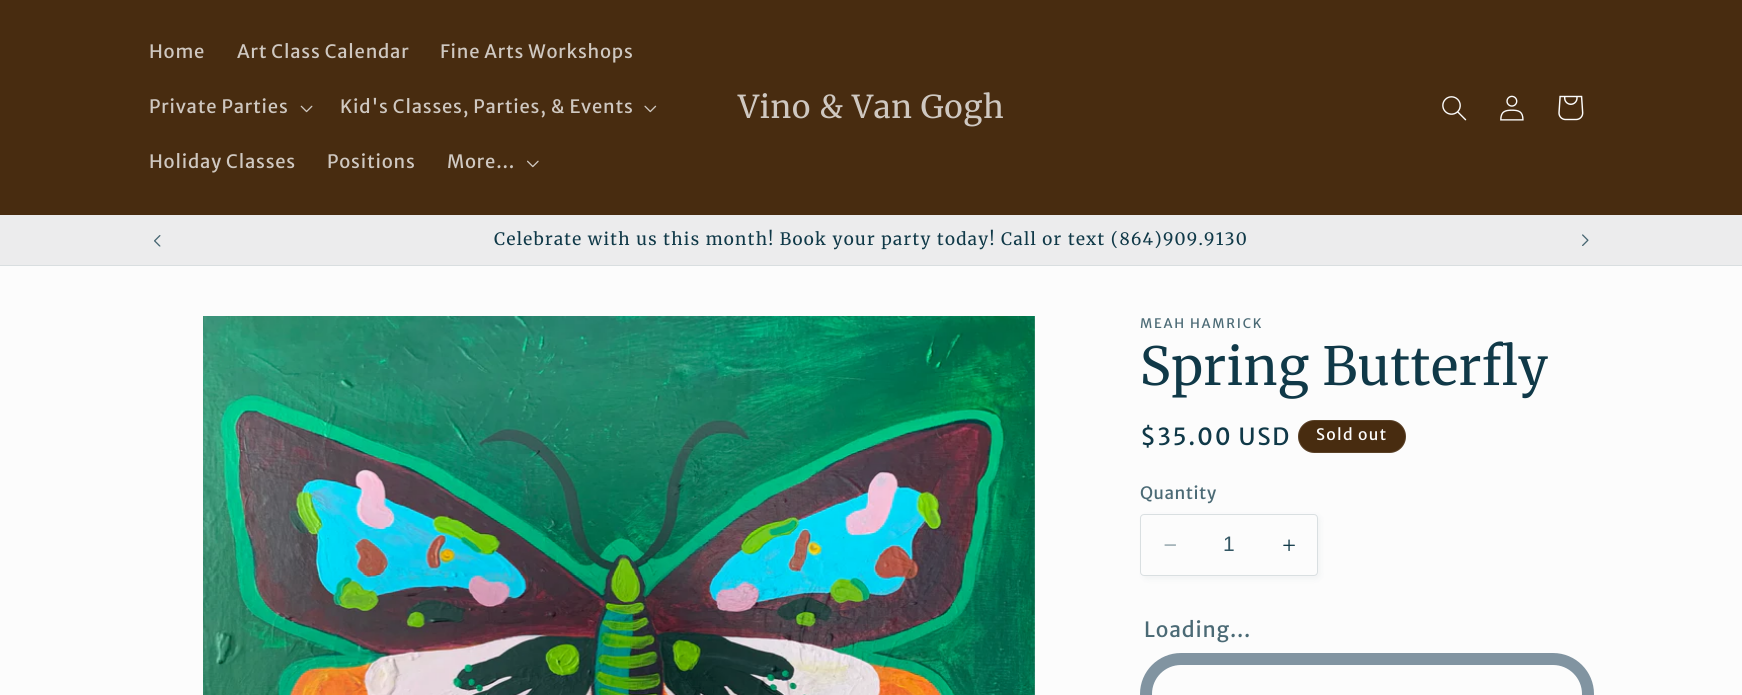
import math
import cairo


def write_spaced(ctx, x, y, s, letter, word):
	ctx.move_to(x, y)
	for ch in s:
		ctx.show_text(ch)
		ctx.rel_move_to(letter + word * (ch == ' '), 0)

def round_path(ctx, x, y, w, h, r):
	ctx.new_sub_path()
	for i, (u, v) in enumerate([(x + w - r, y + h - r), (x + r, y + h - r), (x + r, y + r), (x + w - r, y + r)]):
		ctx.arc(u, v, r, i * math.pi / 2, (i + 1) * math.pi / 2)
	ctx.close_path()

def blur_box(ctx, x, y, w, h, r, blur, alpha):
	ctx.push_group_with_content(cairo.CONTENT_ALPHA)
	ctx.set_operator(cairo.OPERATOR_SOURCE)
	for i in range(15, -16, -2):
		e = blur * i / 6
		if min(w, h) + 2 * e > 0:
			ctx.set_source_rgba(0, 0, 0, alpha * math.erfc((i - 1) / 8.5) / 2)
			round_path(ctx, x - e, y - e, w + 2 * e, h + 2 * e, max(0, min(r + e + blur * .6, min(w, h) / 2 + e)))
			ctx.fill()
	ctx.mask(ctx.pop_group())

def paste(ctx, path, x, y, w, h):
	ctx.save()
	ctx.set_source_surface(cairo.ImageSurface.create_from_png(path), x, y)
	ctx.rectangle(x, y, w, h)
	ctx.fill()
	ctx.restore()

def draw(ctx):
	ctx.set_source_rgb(0.988, 0.988, 0.988)
	ctx.paint()
	ctx.set_source_rgb(0.282, 0.173, 0.063)
	ctx.rectangle(0, 0, 1742, 215)
	ctx.fill()
	ctx.select_font_face('Merriweather Sans')
	ctx.set_font_size(18.4)
	ctx.set_source_rgb(0.812, 0.784, 0.757)
	for x, y, s in [
		(149, 58, 'Home'),
		(237, 58, 'Art Class Calendar'),
		(440, 58, 'Fine Arts Workshops'),
		(149, 113, 'Private Parties'),
	]:
		write_spaced(ctx, x, y, s, 0.8, 0)
	paste(ctx, 'media/1.png', 300, 105, 13, 8)
	write_spaced(ctx, 340, 113, 'Kid\'s Classes, Parties, & Events', 0.8, 0)
	paste(ctx, 'media/2.png', 644, 105, 13, 8)
	for x, y, s in [
		(149, 168, 'Holiday Classes'),
		(327, 168, 'Positions'),
		(447, 168, 'More...'),
	]:
		write_spaced(ctx, x, y, s, 0.8, 0)
	paste(ctx, 'media/3.png', 527, 160, 12, 8)
	ctx.select_font_face('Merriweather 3')
	ctx.set_font_size(31.5)
	write_spaced(ctx, 738, 118, 'Vino & Van Gogh', 0.8, 0)
	paste(ctx, 'media/4.png', 1442, 96, 25, 25)
	paste(ctx, 'media/5.png', 1500, 95, 24, 26)
	paste(ctx, 'media/6.png', 1558, 95, 26, 26)
	ctx.set_source_rgb(0.922, 0.925, 0.929)
	ctx.rectangle(0, 215, 1742, 50)
	ctx.fill()
	ctx.set_source_rgb(0.851, 0.871, 0.878)
	ctx.rectangle(0, 265, 1742, 1)
	ctx.fill()
	paste(ctx, 'media/7.png', 154, 235, 7, 12)
	ctx.select_font_face('Merriweather')
	ctx.set_font_size(17.05)
	ctx.set_source_rgb(0.063, 0.224, 0.282)
	write_spaced(ctx, 494, 245, 'Celebrate with us this month! Book your party today! Call or text (864)909.9130', 1.3, 0)
	paste(ctx, 'media/8.png', 1582, 234, 7, 12)
	paste(ctx, 'media/9.png', 203, 316, 832, 379)
	ctx.select_font_face('Merriweather Sans')
	ctx.set_font_size(13.1)
	ctx.set_source_rgb(0.294, 0.416, 0.459)
	write_spaced(ctx, 1140, 328, 'MEAH HAMRICK', 1.75, 0)
	ctx.select_font_face('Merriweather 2')
	ctx.set_font_size(52.5)
	ctx.set_source_rgb(0.063, 0.224, 0.282)
	write_spaced(ctx, 1140, 385, 'Spring Butterfly', 0.8, 0)
	ctx.select_font_face('Merriweather Sans')
	ctx.set_font_size(23.5)
	write_spaced(ctx, 1140, 445, '$35.00 USD', 1.75, 0)
	ctx.set_source_rgb(0.282, 0.173, 0.063)
	round_path(ctx, 1298, 420, 108, 33, 16.5)
	ctx.fill()
	round_path(ctx, 1298.5, 420.5, 107, 32, 16)
	ctx.set_source_rgba(0.988, 0.988, 0.988, 0.1)
	ctx.set_line_width(1)
	ctx.stroke()
	ctx.set_font_size(15.75)
	ctx.set_source_rgb(0.988, 0.988, 0.988)
	write_spaced(ctx, 1316, 440, 'Sold out', 1.3, 0)
	ctx.set_font_size(17.05)
	ctx.set_source_rgb(0.294, 0.416, 0.459)
	write_spaced(ctx, 1140, 499, 'Quantity', 0.5, 0)
	ctx.set_source_rgb(0.063, 0.224, 0.282)
	blur_box(ctx, 1143, 516, 177, 63, 4, 3, 0.05)
	ctx.set_source_rgb(0.988, 0.988, 0.988)
	round_path(ctx, 1140, 514, 178, 62, 4)
	ctx.fill()
	paste(ctx, 'media/10.png', 1164, 544, 12, 2)
	paste(ctx, 'media/11.png', 1283, 539, 12, 12)
	round_path(ctx, 1140.5, 514.5, 177, 61, 3.5)
	ctx.set_source_rgb(0.851, 0.875, 0.882)
	ctx.stroke()
	ctx.select_font_face('Liberation Sans')
	ctx.set_font_size(21)
	ctx.set_source_rgb(0.2, 0.337, 0.388)
	ctx.move_to(1223, 551)
	ctx.show_text('1')
	ctx.select_font_face('Merriweather Sans')
	ctx.set_source_rgb(0.294, 0.416, 0.459)
	write_spaced(ctx, 1144, 637, 'Loading...', 0.8, 0)
	round_path(ctx, 1146, 659, 442, 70, 35)
	ctx.set_source_rgb(0.506, 0.58, 0.631)
	ctx.set_line_width(12)
	ctx.stroke()


surface = cairo.ImageSurface(cairo.FORMAT_RGB24, 1742, 695)
ctx = cairo.Context(surface)
options = cairo.FontOptions()
options.set_hint_metrics(cairo.HINT_METRICS_OFF)
options.set_hint_style(cairo.HINT_STYLE_NONE)
ctx.set_font_options(options)
ctx.set_miter_limit(4)
draw(ctx)
surface.write_to_png('image.png')
